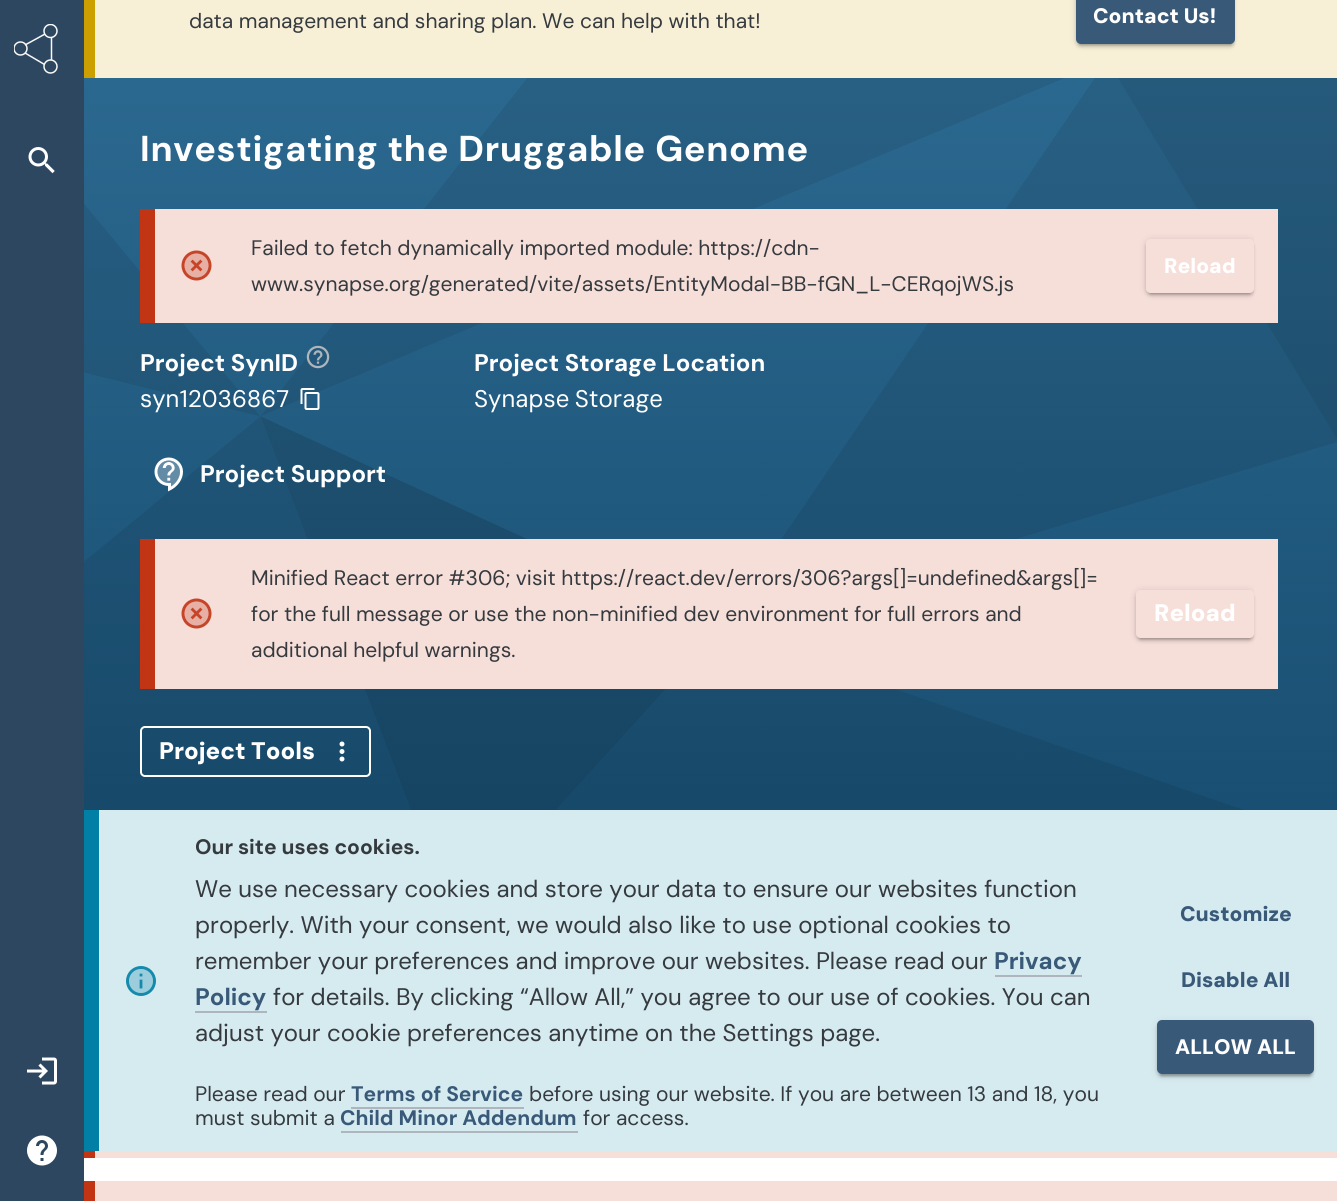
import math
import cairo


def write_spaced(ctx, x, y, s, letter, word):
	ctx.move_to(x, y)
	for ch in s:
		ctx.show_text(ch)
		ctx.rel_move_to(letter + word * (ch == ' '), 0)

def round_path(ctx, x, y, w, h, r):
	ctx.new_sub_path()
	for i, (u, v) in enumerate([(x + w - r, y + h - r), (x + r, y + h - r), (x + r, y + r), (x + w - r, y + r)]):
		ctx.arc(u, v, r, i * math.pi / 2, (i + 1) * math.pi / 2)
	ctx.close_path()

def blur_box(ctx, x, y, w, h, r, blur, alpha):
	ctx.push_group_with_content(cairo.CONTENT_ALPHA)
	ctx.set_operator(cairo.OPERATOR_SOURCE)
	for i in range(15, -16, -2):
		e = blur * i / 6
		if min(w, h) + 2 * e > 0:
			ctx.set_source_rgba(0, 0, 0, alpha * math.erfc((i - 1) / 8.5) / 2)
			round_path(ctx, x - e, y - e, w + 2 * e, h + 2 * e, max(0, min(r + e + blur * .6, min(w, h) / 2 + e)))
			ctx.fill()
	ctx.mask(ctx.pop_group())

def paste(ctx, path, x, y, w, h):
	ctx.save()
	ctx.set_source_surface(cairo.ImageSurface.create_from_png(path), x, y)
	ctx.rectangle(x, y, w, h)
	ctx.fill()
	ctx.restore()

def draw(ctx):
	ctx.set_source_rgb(1, 1, 1)
	ctx.paint()
	ctx.set_source_rgb(0.18, 0.278, 0.38)
	ctx.rectangle(0, 0, 84, 1201)
	ctx.fill()
	ctx.new_path()
	ctx.move_to(25, 45)
	ctx.line_to(45, 34)
	ctx.move_to(51.5, 37)
	ctx.line_to(51.5, 60)
	ctx.move_to(25, 53)
	ctx.line_to(44.5, 64.5)
	ctx.set_source_rgb(0.973, 0.976, 0.98)
	ctx.set_line_width(1.5)
	ctx.stroke()
	ctx.save()
	ctx.rectangle(14, 24, 45, 50)
	ctx.clip()
	ctx.arc(50.5, 31, 6.5, 0, 2 * math.pi)
	ctx.stroke()
	ctx.arc(20.5, 48.5, 6.5, 0, 2 * math.pi)
	ctx.stroke()
	ctx.restore()
	ctx.arc(50.5, 66.5, 6.5, 0, 2 * math.pi)
	ctx.stroke()
	paste(ctx, 'media/1.png', 28, 147, 27, 27)
	paste(ctx, 'media/2.png', 27, 1057, 30, 28)
	paste(ctx, 'media/3.png', 27, 1135, 30, 31)
	ctx.set_source_rgb(0.965, 0.937, 0.839)
	ctx.rectangle(95, 0, 1242, 78)
	ctx.fill()
	ctx.set_source_rgb(0.8, 0.624, 0)
	ctx.rectangle(84, 0, 11, 78)
	ctx.fill()
	ctx.select_font_face('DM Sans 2')
	ctx.set_font_size(21)
	ctx.set_source_rgb(0.208, 0.227, 0.247)
	ctx.move_to(189, 28)
	ctx.show_text('data management and sharing plan. We can help with that!')
	ctx.save()
	ctx.rectangle(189, 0, 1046, 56)
	ctx.clip()
	ctx.set_source_rgb(0, 0, 0)
	blur_box(ctx, 1076, -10, 159, 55, 5, 4, 0.12)
	ctx.restore()
	ctx.set_source_rgb(0, 0, 0)
	blur_box(ctx, 1076, -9, 159, 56, 5, 1.5, 0.14)
	blur_box(ctx, 1079, -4, 153, 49, 1.5, 1, 0.2)
	ctx.set_source_rgb(0.224, 0.349, 0.475)
	round_path(ctx, 1076, -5, 159, 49, 5)
	ctx.fill()
	ctx.select_font_face('DM Sans Black')
	ctx.set_source_rgb(1, 1, 1)
	ctx.move_to(1093, 23)
	ctx.show_text('Contact Us!')
	ctx.set_source_rgb(0.839, 0.918, 0.941)
	ctx.rectangle(99, 810, 1238, 341)
	ctx.fill()
	ctx.set_source_rgb(0.004, 0.498, 0.647)
	ctx.rectangle(84, 810, 15, 341)
	ctx.fill()
	paste(ctx, 'media/4.png', 126, 966, 30, 30)
	ctx.select_font_face('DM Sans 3', cairo.FONT_SLANT_NORMAL, cairo.FONT_WEIGHT_BOLD)
	ctx.set_source_rgb(0.208, 0.227, 0.247)
	ctx.move_to(195, 854)
	ctx.show_text('Our site uses cookies.')
	ctx.select_font_face('DM Sans 3')
	ctx.set_font_size(24)
	for x, y, s in [
		(195, 897, 'We use necessary cookies and store your data to ensure our websites function'),
		(195, 933, 'properly. With your consent, we would also like to use optional cookies to'),
		(195, 969, 'remember your preferences and improve our websites. Please read our'),
	]:
		ctx.move_to(x, y)
		ctx.show_text(s)
	ctx.select_font_face('DM Sans', cairo.FONT_SLANT_NORMAL, cairo.FONT_WEIGHT_BOLD)
	ctx.set_source_rgb(0.224, 0.349, 0.475)
	ctx.move_to(994, 969)
	ctx.show_text('Privacy')
	ctx.set_source_rgb(0.682, 0.71, 0.737)
	ctx.rectangle(995, 975, 87, 2)
	ctx.fill()
	ctx.set_source_rgb(0.224, 0.349, 0.475)
	ctx.move_to(195, 1005)
	ctx.show_text('Policy')
	ctx.set_source_rgb(0.682, 0.71, 0.737)
	ctx.rectangle(195, 1011, 72, 2)
	ctx.fill()
	ctx.select_font_face('DM Sans 3')
	ctx.set_source_rgb(0.208, 0.227, 0.247)
	ctx.move_to(273, 1005)
	ctx.show_text('for details. By clicking “Allow All,” you agree to our use of cookies. You can')
	ctx.move_to(195, 1041)
	ctx.show_text('adjust your cookie preferences anytime on the Settings page.')
	ctx.select_font_face('DM Sans 2')
	ctx.set_font_size(21)
	ctx.move_to(195, 1101)
	ctx.show_text('Please read our')
	ctx.select_font_face('DM Sans 3', cairo.FONT_SLANT_NORMAL, cairo.FONT_WEIGHT_BOLD)
	ctx.set_source_rgb(0.224, 0.349, 0.475)
	ctx.move_to(351, 1101)
	ctx.show_text('Terms of Service')
	ctx.set_source_rgb(0.682, 0.71, 0.737)
	ctx.rectangle(351, 1107, 173, 2)
	ctx.fill()
	ctx.select_font_face('DM Sans 2')
	ctx.set_source_rgb(0.208, 0.227, 0.247)
	ctx.move_to(529, 1101)
	ctx.show_text('before using our website. If you are between 13 and 18, you')
	ctx.move_to(195, 1125)
	ctx.show_text('must submit a')
	ctx.select_font_face('DM Sans 3', cairo.FONT_SLANT_NORMAL, cairo.FONT_WEIGHT_BOLD)
	ctx.set_source_rgb(0.224, 0.349, 0.475)
	ctx.move_to(340, 1125)
	ctx.show_text('Child Minor Addendum')
	ctx.set_source_rgb(0.682, 0.71, 0.737)
	ctx.rectangle(341, 1131, 237, 2)
	ctx.fill()
	ctx.select_font_face('DM Sans 2')
	ctx.set_source_rgb(0.208, 0.227, 0.247)
	ctx.move_to(583, 1125)
	ctx.show_text('for access.')
	ctx.select_font_face('DM Sans Black')
	ctx.set_source_rgb(0.224, 0.349, 0.475)
	ctx.move_to(1180, 921)
	ctx.show_text('Customize')
	ctx.move_to(1181, 987)
	ctx.show_text('Disable All')
	ctx.save()
	ctx.rectangle(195, 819, 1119, 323)
	ctx.clip()
	ctx.set_source_rgb(0, 0, 0)
	blur_box(ctx, 1157, 1022, 157, 54, 5, 4, 0.12)
	ctx.restore()
	ctx.save()
	ctx.set_fill_rule(cairo.FILL_RULE_EVEN_ODD)
	ctx.new_path()
	ctx.move_to(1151, 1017)
	ctx.line_to(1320, 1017)
	ctx.line_to(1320, 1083)
	ctx.line_to(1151, 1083)
	ctx.close_path()
	ctx.move_to(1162, 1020)
	ctx.line_to(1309, 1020)
	ctx.curve_to(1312, 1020, 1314, 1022, 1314, 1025)
	ctx.line_to(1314, 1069)
	ctx.curve_to(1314, 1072, 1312, 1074, 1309, 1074)
	ctx.line_to(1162, 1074)
	ctx.curve_to(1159, 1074, 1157, 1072, 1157, 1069)
	ctx.line_to(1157, 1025)
	ctx.curve_to(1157, 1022, 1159, 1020, 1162, 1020)
	ctx.close_path()
	ctx.clip()
	ctx.set_source_rgb(0, 0, 0)
	blur_box(ctx, 1157, 1023, 157, 54, 5, 1.5, 0.14)
	ctx.restore()
	ctx.set_source_rgb(0, 0, 0)
	blur_box(ctx, 1160, 1028, 151, 48, 1.5, 1, 0.2)
	ctx.set_source_rgb(0.224, 0.349, 0.475)
	round_path(ctx, 1157, 1020, 157, 54, 5)
	ctx.fill()
	ctx.set_source_rgb(1, 1, 1)
	ctx.move_to(1175, 1054)
	ctx.show_text('ALLOW ALL')
	paste(ctx, 'media/5.png', 84, 78, 1253, 732)
	ctx.select_font_face('DM Sans 2', cairo.FONT_SLANT_NORMAL, cairo.FONT_WEIGHT_BOLD)
	ctx.set_font_size(36)
	write_spaced(ctx, 140, 161, 'Investigating the Druggable Genome', 0.75, 0)
	ctx.set_source_rgb(0.961, 0.871, 0.851)
	ctx.rectangle(155, 209, 1123, 114)
	ctx.fill()
	ctx.set_source_rgb(0.757, 0.204, 0.082)
	ctx.rectangle(140, 209, 15, 114)
	ctx.fill()
	paste(ctx, 'media/6.png', 181, 250, 31, 31)
	ctx.select_font_face('DM Sans 2')
	ctx.set_font_size(21)
	ctx.set_source_rgb(0.208, 0.227, 0.247)
	ctx.move_to(251, 255)
	ctx.show_text('Failed to fetch dynamically imported module: https://cdn-')
	ctx.move_to(251, 291)
	ctx.show_text('www.synapse.org/generated/vite/assets/EntityModal-BB-fGN_L-CERqojWS.js')
	ctx.save()
	ctx.rectangle(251, 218, 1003, 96)
	ctx.clip()
	ctx.set_fill_rule(cairo.FILL_RULE_EVEN_ODD)
	ctx.new_path()
	ctx.move_to(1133, 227)
	ctx.line_to(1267, 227)
	ctx.line_to(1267, 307)
	ctx.line_to(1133, 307)
	ctx.close_path()
	ctx.move_to(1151, 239)
	ctx.line_to(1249, 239)
	ctx.curve_to(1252, 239, 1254, 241, 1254, 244)
	ctx.line_to(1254, 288)
	ctx.curve_to(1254, 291, 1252, 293, 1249, 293)
	ctx.line_to(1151, 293)
	ctx.curve_to(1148, 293, 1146, 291, 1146, 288)
	ctx.line_to(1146, 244)
	ctx.curve_to(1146, 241, 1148, 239, 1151, 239)
	ctx.close_path()
	ctx.clip()
	ctx.set_source_rgb(0, 0, 0)
	blur_box(ctx, 1146, 240, 108, 54, 5, 4, 0.12)
	ctx.restore()
	ctx.save()
	ctx.set_fill_rule(cairo.FILL_RULE_EVEN_ODD)
	ctx.new_path()
	ctx.move_to(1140, 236)
	ctx.line_to(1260, 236)
	ctx.line_to(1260, 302)
	ctx.line_to(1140, 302)
	ctx.close_path()
	ctx.move_to(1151, 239)
	ctx.line_to(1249, 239)
	ctx.curve_to(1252, 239, 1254, 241, 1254, 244)
	ctx.line_to(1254, 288)
	ctx.curve_to(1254, 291, 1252, 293, 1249, 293)
	ctx.line_to(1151, 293)
	ctx.curve_to(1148, 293, 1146, 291, 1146, 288)
	ctx.line_to(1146, 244)
	ctx.curve_to(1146, 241, 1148, 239, 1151, 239)
	ctx.close_path()
	ctx.clip()
	ctx.set_source_rgb(0, 0, 0)
	blur_box(ctx, 1146, 242, 108, 54, 5, 1.5, 0.14)
	ctx.restore()
	ctx.save()
	ctx.set_fill_rule(cairo.FILL_RULE_EVEN_ODD)
	ctx.new_path()
	ctx.move_to(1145, 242)
	ctx.line_to(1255, 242)
	ctx.line_to(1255, 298)
	ctx.line_to(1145, 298)
	ctx.close_path()
	ctx.move_to(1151, 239)
	ctx.line_to(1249, 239)
	ctx.curve_to(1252, 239, 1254, 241, 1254, 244)
	ctx.line_to(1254, 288)
	ctx.curve_to(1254, 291, 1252, 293, 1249, 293)
	ctx.line_to(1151, 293)
	ctx.curve_to(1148, 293, 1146, 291, 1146, 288)
	ctx.line_to(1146, 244)
	ctx.curve_to(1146, 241, 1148, 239, 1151, 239)
	ctx.close_path()
	ctx.clip()
	ctx.set_source_rgb(0, 0, 0)
	blur_box(ctx, 1149, 246, 102, 48, 1.5, 1, 0.2)
	ctx.restore()
	ctx.select_font_face('DM Sans Black')
	ctx.set_source_rgb(1, 1, 1)
	ctx.move_to(1164, 273)
	ctx.show_text('Reload')
	ctx.select_font_face('DM Sans', cairo.FONT_SLANT_NORMAL, cairo.FONT_WEIGHT_BOLD)
	ctx.set_font_size(24)
	ctx.move_to(140, 371)
	ctx.show_text('Project SynID')
	paste(ctx, 'media/7.png', 306, 345, 24, 24)
	ctx.select_font_face('DM Sans')
	ctx.move_to(140, 407)
	ctx.show_text('syn12036867')
	paste(ctx, 'media/8.png', 300, 388, 20, 22)
	ctx.select_font_face('DM Sans', cairo.FONT_SLANT_NORMAL, cairo.FONT_WEIGHT_BOLD)
	ctx.move_to(474, 371)
	ctx.show_text('Project Storage Location')
	ctx.select_font_face('DM Sans')
	write_spaced(ctx, 474, 407, 'Synapse Storage', 0, -1)
	paste(ctx, 'media/9.png', 154, 457, 29, 35)
	ctx.select_font_face('DM Sans', cairo.FONT_SLANT_NORMAL, cairo.FONT_WEIGHT_BOLD)
	ctx.move_to(200, 482)
	ctx.show_text('Project Support')
	ctx.set_source_rgb(0.961, 0.871, 0.851)
	ctx.rectangle(155, 539, 1123, 150)
	ctx.fill()
	ctx.set_source_rgb(0.757, 0.204, 0.082)
	ctx.rectangle(140, 539, 15, 150)
	ctx.fill()
	paste(ctx, 'media/6.png', 181, 598, 31, 31)
	ctx.select_font_face('DM Sans 2')
	ctx.set_font_size(21)
	ctx.set_source_rgb(0.208, 0.227, 0.247)
	for x, y, s in [
		(251, 585, 'Minified React error #306; visit https://react.dev/errors/306?args[]=undefined&args[]='),
		(251, 621, 'for the full message or use the non-minified dev environment for full errors and'),
		(251, 657, 'additional helpful warnings.'),
	]:
		ctx.move_to(x, y)
		ctx.show_text(s)
	ctx.save()
	ctx.rectangle(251, 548, 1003, 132)
	ctx.clip()
	ctx.set_fill_rule(cairo.FILL_RULE_EVEN_ODD)
	ctx.new_path()
	ctx.move_to(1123, 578)
	ctx.line_to(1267, 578)
	ctx.line_to(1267, 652)
	ctx.line_to(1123, 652)
	ctx.close_path()
	ctx.move_to(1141, 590)
	ctx.line_to(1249, 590)
	ctx.curve_to(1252, 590, 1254, 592, 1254, 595)
	ctx.line_to(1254, 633)
	ctx.curve_to(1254, 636, 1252, 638, 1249, 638)
	ctx.line_to(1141, 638)
	ctx.curve_to(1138, 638, 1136, 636, 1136, 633)
	ctx.line_to(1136, 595)
	ctx.curve_to(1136, 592, 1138, 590, 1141, 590)
	ctx.close_path()
	ctx.clip()
	ctx.set_source_rgb(0, 0, 0)
	blur_box(ctx, 1136, 591, 118, 48, 5, 4, 0.12)
	ctx.restore()
	ctx.save()
	ctx.set_fill_rule(cairo.FILL_RULE_EVEN_ODD)
	ctx.new_path()
	ctx.move_to(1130, 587)
	ctx.line_to(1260, 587)
	ctx.line_to(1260, 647)
	ctx.line_to(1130, 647)
	ctx.close_path()
	ctx.move_to(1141, 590)
	ctx.line_to(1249, 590)
	ctx.curve_to(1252, 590, 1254, 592, 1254, 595)
	ctx.line_to(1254, 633)
	ctx.curve_to(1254, 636, 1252, 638, 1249, 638)
	ctx.line_to(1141, 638)
	ctx.curve_to(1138, 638, 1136, 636, 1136, 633)
	ctx.line_to(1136, 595)
	ctx.curve_to(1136, 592, 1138, 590, 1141, 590)
	ctx.close_path()
	ctx.clip()
	ctx.set_source_rgb(0, 0, 0)
	blur_box(ctx, 1136, 593, 118, 48, 5, 1.5, 0.14)
	ctx.restore()
	ctx.save()
	ctx.set_fill_rule(cairo.FILL_RULE_EVEN_ODD)
	ctx.new_path()
	ctx.move_to(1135, 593)
	ctx.line_to(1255, 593)
	ctx.line_to(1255, 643)
	ctx.line_to(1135, 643)
	ctx.close_path()
	ctx.move_to(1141, 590)
	ctx.line_to(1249, 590)
	ctx.curve_to(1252, 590, 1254, 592, 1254, 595)
	ctx.line_to(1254, 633)
	ctx.curve_to(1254, 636, 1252, 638, 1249, 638)
	ctx.line_to(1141, 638)
	ctx.curve_to(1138, 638, 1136, 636, 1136, 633)
	ctx.line_to(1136, 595)
	ctx.curve_to(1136, 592, 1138, 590, 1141, 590)
	ctx.close_path()
	ctx.clip()
	ctx.set_source_rgb(0, 0, 0)
	blur_box(ctx, 1139, 597, 112, 42, 1.5, 1, 0.2)
	ctx.restore()
	ctx.select_font_face('DM Sans 2 Black')
	ctx.set_font_size(24)
	ctx.set_source_rgb(1, 1, 1)
	ctx.move_to(1154, 621)
	ctx.show_text('Reload')
	round_path(ctx, 141, 727, 229, 49, 4)
	ctx.set_line_width(2)
	ctx.stroke()
	ctx.move_to(159, 759)
	ctx.show_text('Project Tools')
	paste(ctx, 'media/10.png', 339, 741, 6, 21)
	ctx.set_source_rgb(0.961, 0.871, 0.851)
	ctx.rectangle(95, 1151, 1242, 7)
	ctx.fill()
	ctx.set_source_rgb(0.757, 0.204, 0.082)
	ctx.rectangle(84, 1151, 11, 7)
	ctx.fill()
	ctx.set_source_rgb(0.961, 0.871, 0.851)
	ctx.rectangle(95, 1181, 1242, 20)
	ctx.fill()
	ctx.set_source_rgb(0.757, 0.204, 0.082)
	ctx.rectangle(84, 1181, 11, 20)
	ctx.fill()


surface = cairo.ImageSurface(cairo.FORMAT_RGB24, 1337, 1201)
ctx = cairo.Context(surface)
options = cairo.FontOptions()
options.set_hint_metrics(cairo.HINT_METRICS_OFF)
options.set_hint_style(cairo.HINT_STYLE_NONE)
ctx.set_font_options(options)
ctx.set_miter_limit(4)
draw(ctx)
surface.write_to_png('image.png')
